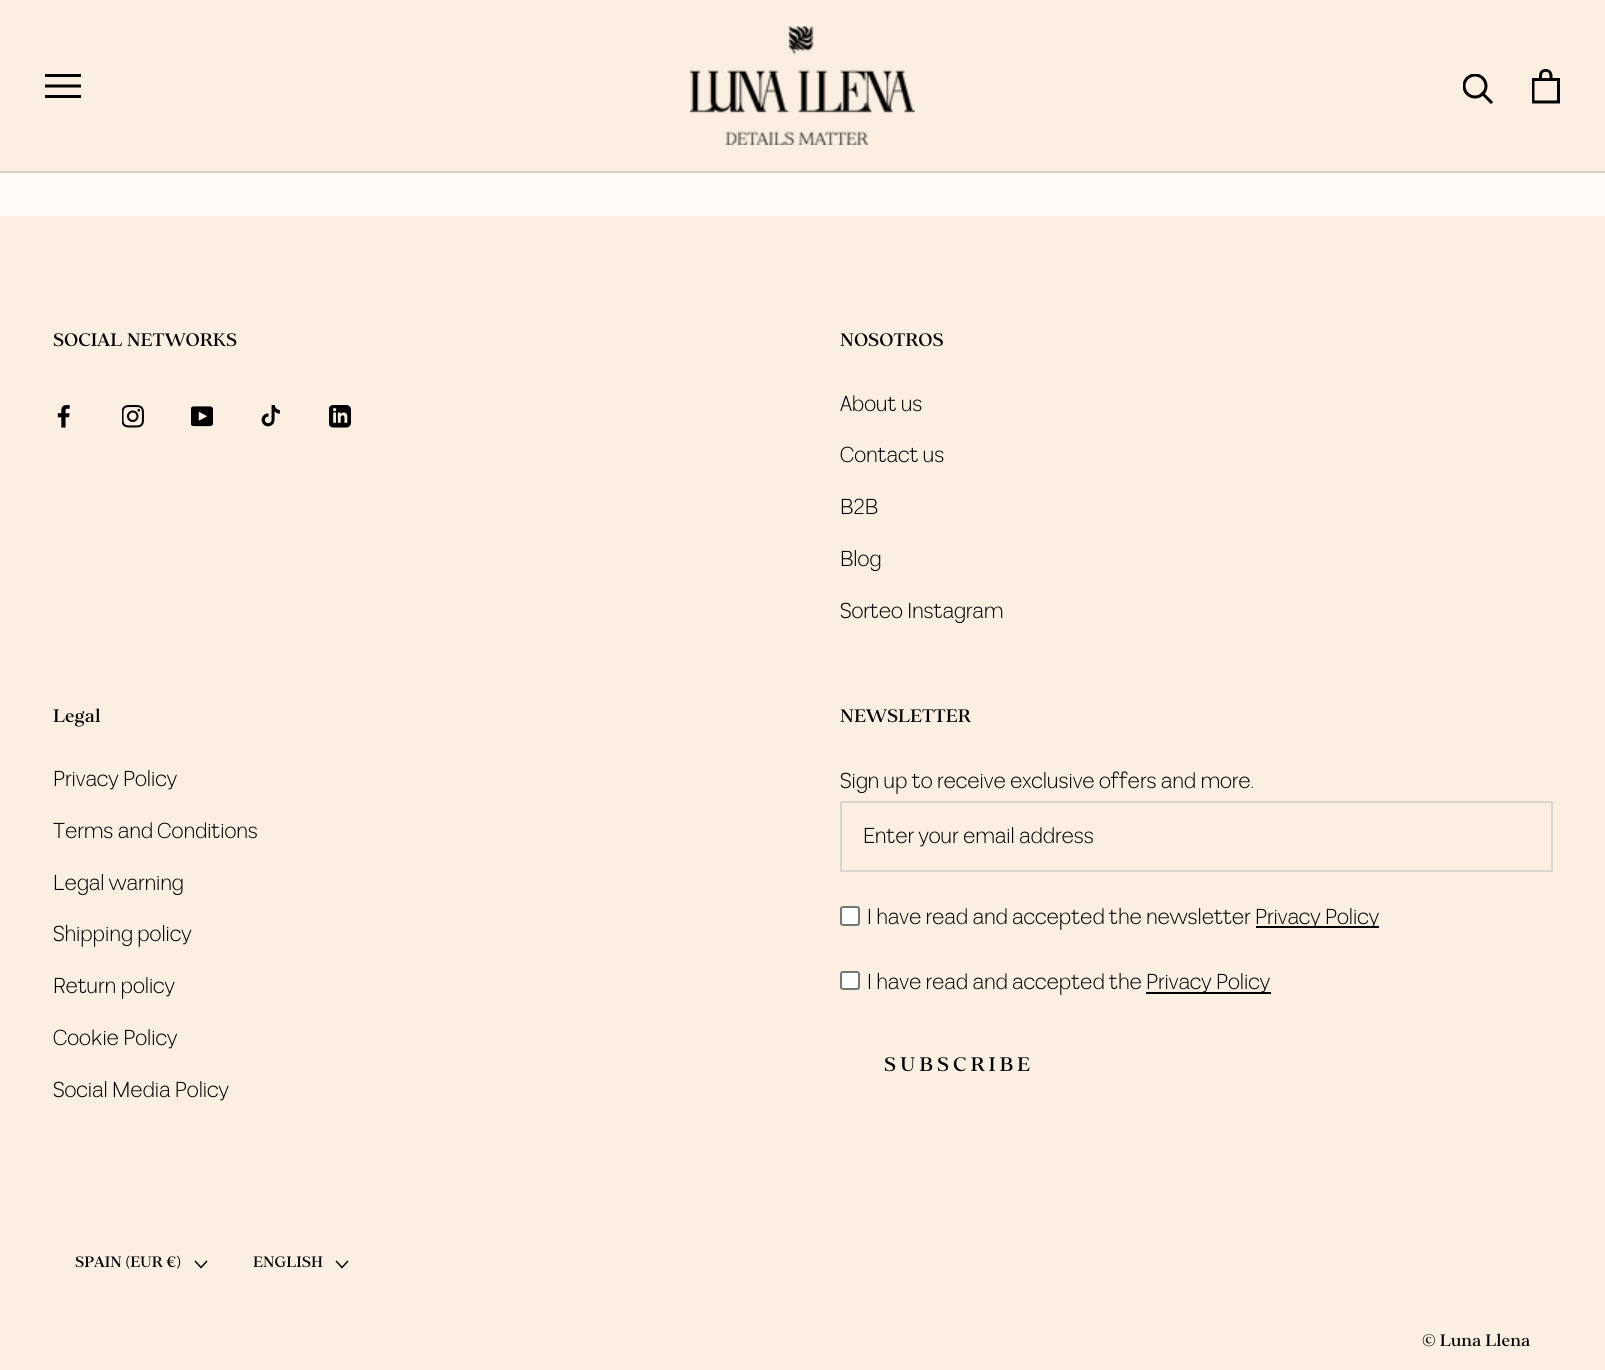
import math
import cairo


def write_spaced(ctx, x, y, s, letter, word):
	ctx.move_to(x, y)
	for ch in s:
		ctx.show_text(ch)
		ctx.rel_move_to(letter + word * (ch == ' '), 0)

def round_path(ctx, x, y, w, h, r):
	ctx.new_sub_path()
	for i, (u, v) in enumerate([(x + w - r, y + h - r), (x + r, y + h - r), (x + r, y + r), (x + w - r, y + r)]):
		ctx.arc(u, v, r, i * math.pi / 2, (i + 1) * math.pi / 2)
	ctx.close_path()

def paste(ctx, path, x, y, w, h):
	ctx.save()
	ctx.set_source_surface(cairo.ImageSurface.create_from_png(path), x, y)
	ctx.rectangle(x, y, w, h)
	ctx.fill()
	ctx.restore()

def draw(ctx):
	ctx.set_source_rgb(1, 0.98, 0.961)
	ctx.paint()
	ctx.set_source_rgb(0.98, 0.937, 0.882)
	ctx.rectangle(0, 0, 1605, 171)
	ctx.fill()
	ctx.set_source_rgb(0.835, 0.796, 0.749)
	ctx.rectangle(0, 171, 1605, 2)
	ctx.fill()
	ctx.set_source_rgb(0, 0, 0)
	ctx.new_path()
	ctx.move_to(45, 98)
	ctx.line_to(45, 95)
	ctx.line_to(81, 95)
	ctx.line_to(81, 98)
	ctx.close_path()
	ctx.move_to(45, 84.5)
	ctx.line_to(81, 84.5)
	ctx.line_to(81, 87.5)
	ctx.line_to(45, 87.5)
	ctx.close_path()
	ctx.move_to(45, 74)
	ctx.line_to(81, 74)
	ctx.line_to(81, 77)
	ctx.line_to(45, 77)
	ctx.close_path()
	ctx.fill()
	paste(ctx, 'media/1.png', 690, 26, 225, 119)
	ctx.new_path()
	ctx.move_to(1491, 102)
	ctx.line_to(1482.5, 93.5)
	ctx.set_line_width(3)
	ctx.set_line_cap(cairo.LINE_CAP_SQUARE)
	ctx.stroke()
	ctx.save()
	ctx.rectangle(1463, 74, 31, 31)
	ctx.clip()
	ctx.arc(1475, 86, 11, 0, 2 * math.pi)
	ctx.set_line_cap(cairo.LINE_CAP_BUTT)
	ctx.stroke()
	ctx.restore()
	paste(ctx, 'media/2.png', 1532, 69, 28, 35)
	ctx.set_source_rgb(0.98, 0.937, 0.882)
	ctx.rectangle(0, 216, 1605, 1154)
	ctx.fill()
	ctx.select_font_face('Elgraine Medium')
	ctx.set_font_size(18)
	ctx.set_source_rgb(0, 0, 0)
	ctx.move_to(53, 346)
	ctx.show_text('SOCIAL NETWORKS')
	paste(ctx, 'media/3.png', 57, 405, 13, 23)
	paste(ctx, 'media/4.png', 122, 405, 22, 23)
	paste(ctx, 'media/5.png', 191, 406, 22, 21)
	paste(ctx, 'media/6.png', 261, 405, 19, 22)
	paste(ctx, 'media/7.png', 329, 405, 22, 23)
	ctx.move_to(840, 346)
	ctx.show_text('NOSOTROS')
	ctx.select_font_face('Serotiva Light')
	ctx.set_font_size(22.5)
	for x, y, s in [
		(840, 411, 'About us'),
		(840, 462, 'Contact us'),
		(840, 514, 'B2B'),
		(840, 566, 'Blog'),
		(840, 618, 'Sorteo Instagram'),
	]:
		ctx.move_to(x, y)
		ctx.show_text(s)
	ctx.select_font_face('Elgraine Medium')
	ctx.set_font_size(18)
	ctx.move_to(53, 722)
	ctx.show_text('Legal')
	ctx.select_font_face('Serotiva Light')
	ctx.set_font_size(22.5)
	for x, y, s in [
		(53, 786, 'Privacy Policy'),
		(53, 838, 'Terms and Conditions'),
		(53, 890, 'Legal warning'),
		(53, 941, 'Shipping policy'),
		(53, 993, 'Return policy'),
		(53, 1045, 'Cookie Policy'),
		(53, 1097, 'Social Media Policy'),
	]:
		ctx.move_to(x, y)
		ctx.show_text(s)
	ctx.select_font_face('Elgraine Medium')
	ctx.set_font_size(18)
	ctx.move_to(840, 722)
	ctx.show_text('NEWSLETTER')
	ctx.select_font_face('Serotiva Light')
	ctx.set_font_size(22.5)
	ctx.move_to(840, 788)
	ctx.show_text('Sign up to receive exclusive offers and more.')
	ctx.rectangle(841, 802, 711, 69)
	ctx.set_source_rgb(0.851, 0.835, 0.816)
	ctx.set_line_width(2)
	ctx.set_line_cap(cairo.LINE_CAP_BUTT)
	ctx.stroke()
	ctx.set_source_rgb(0, 0, 0)
	ctx.move_to(863, 843)
	ctx.show_text('Enter your email address')
	ctx.set_source_rgb(1, 1, 1)
	round_path(ctx, 841, 907, 18, 18, 2)
	ctx.fill_preserve()
	ctx.set_source_rgb(0.463, 0.463, 0.463)
	ctx.stroke()
	ctx.set_source_rgb(0, 0, 0)
	ctx.move_to(867, 924)
	ctx.show_text('I have read and accepted the newsletter')
	ctx.rectangle(1256, 926, 123, 2)
	ctx.fill()
	ctx.move_to(1255, 924)
	ctx.show_text('Privacy Policy')
	ctx.set_source_rgb(1, 1, 1)
	round_path(ctx, 841, 972, 18, 17, 2)
	ctx.fill_preserve()
	ctx.set_source_rgb(0.463, 0.463, 0.463)
	ctx.stroke()
	ctx.set_source_rgb(0, 0, 0)
	ctx.move_to(867, 989)
	ctx.show_text('I have read and accepted the')
	ctx.rectangle(1146, 992, 125, 2)
	ctx.fill()
	ctx.move_to(1146, 989)
	ctx.show_text('Privacy Policy')
	ctx.select_font_face('Elgraine Medium')
	ctx.set_font_size(19.5)
	write_spaced(ctx, 884, 1071, 'SUBSCRIBE', 4, 0)
	ctx.set_font_size(15)
	ctx.move_to(75, 1267)
	ctx.show_text('SPAIN (EUR €)')
	ctx.new_path()
	ctx.move_to(206.5, 1261.5)
	ctx.line_to(201, 1267.5)
	ctx.line_to(195.5, 1261.5)
	ctx.set_line_width(1.5)
	ctx.set_line_cap(cairo.LINE_CAP_SQUARE)
	ctx.stroke()
	ctx.move_to(253, 1267)
	ctx.show_text('ENGLISH')
	ctx.new_path()
	ctx.move_to(347.5, 1261.5)
	ctx.line_to(342, 1267.5)
	ctx.line_to(336.5, 1261.5)
	ctx.stroke()
	ctx.set_font_size(16.5)
	ctx.move_to(1422, 1346)
	ctx.show_text('© Luna Llena')


surface = cairo.ImageSurface(cairo.FORMAT_RGB24, 1605, 1370)
ctx = cairo.Context(surface)
options = cairo.FontOptions()
options.set_hint_metrics(cairo.HINT_METRICS_OFF)
options.set_hint_style(cairo.HINT_STYLE_NONE)
ctx.set_font_options(options)
ctx.set_miter_limit(4)
draw(ctx)
surface.write_to_png('image.png')
